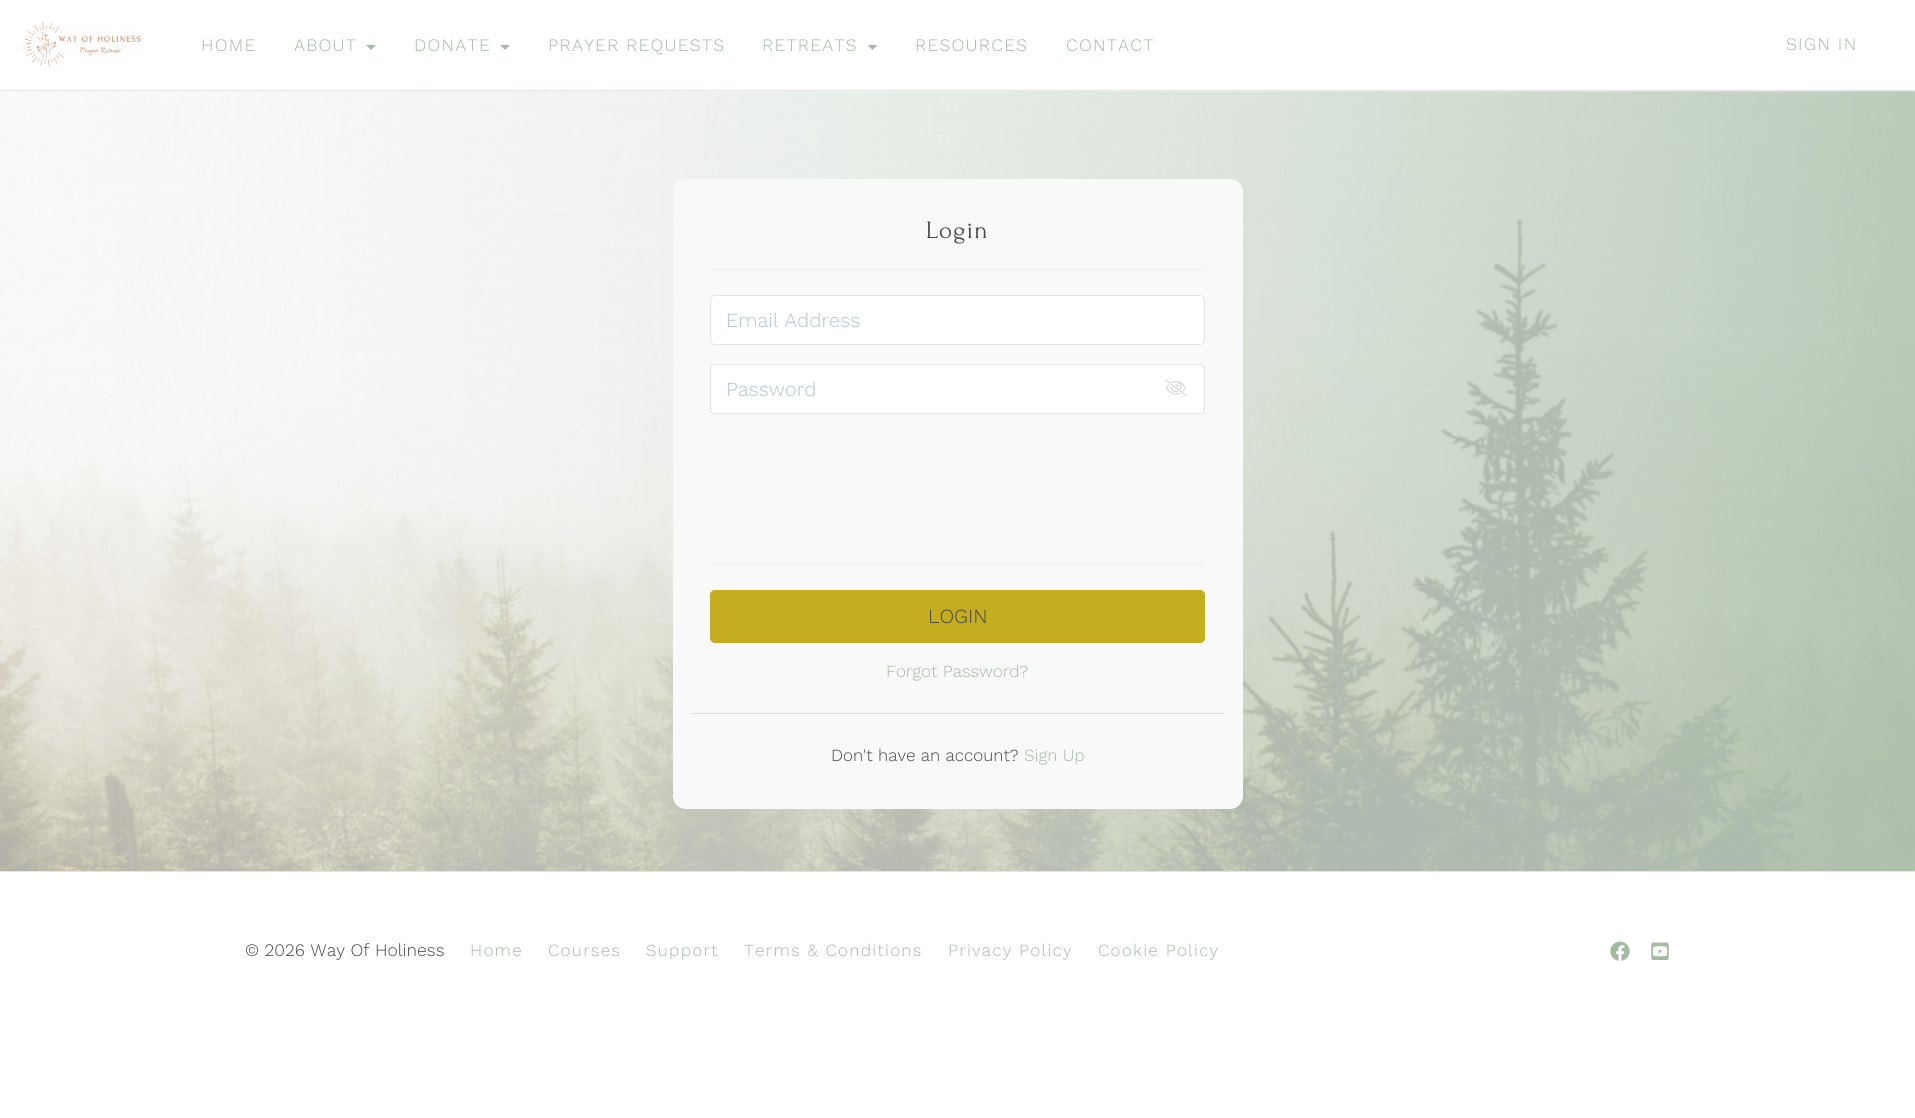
import math
import cairo


def write_spaced(ctx, x, y, s, letter, word):
	ctx.move_to(x, y)
	for ch in s:
		ctx.show_text(ch)
		ctx.rel_move_to(letter + word * (ch == ' '), 0)

def round_path(ctx, x, y, w, h, r):
	ctx.new_sub_path()
	for i, (u, v) in enumerate([(x + w - r, y + h - r), (x + r, y + h - r), (x + r, y + r), (x + w - r, y + r)]):
		ctx.arc(u, v, r, i * math.pi / 2, (i + 1) * math.pi / 2)
	ctx.close_path()

def paste(ctx, path, x, y, w, h):
	ctx.save()
	ctx.set_source_surface(cairo.ImageSurface.create_from_png(path), x, y)
	ctx.rectangle(x, y, w, h)
	ctx.fill()
	ctx.restore()

def draw(ctx):
	ctx.set_source_rgb(1, 1, 1)
	ctx.paint()
	ctx.set_source_rgb(0.894, 0.894, 0.894)
	ctx.rectangle(0, 90, 1915, 1)
	ctx.fill()
	paste(ctx, 'media/1.png', 23, 21, 118, 46)
	ctx.select_font_face('Work Sans Light')
	ctx.set_font_size(17.5)
	ctx.set_source_rgb(0.643, 0.733, 0.639)
	write_spaced(ctx, 201, 51, 'HOME', 1.25, 0)
	write_spaced(ctx, 294, 51, 'ABOUT', 1.25, 0)
	ctx.new_path()
	ctx.move_to(366, 45)
	ctx.line_to(376, 45)
	ctx.line_to(371, 50)
	ctx.close_path()
	ctx.fill()
	write_spaced(ctx, 414, 51, 'DONATE', 1.25, 0)
	ctx.new_path()
	ctx.move_to(500, 45)
	ctx.line_to(510, 45)
	ctx.line_to(505, 50)
	ctx.close_path()
	ctx.fill()
	write_spaced(ctx, 548, 51, 'PRAYER REQUESTS', 1.25, 0)
	write_spaced(ctx, 762, 51, 'RETREATS', 1.25, 0)
	ctx.new_path()
	ctx.move_to(867.5, 45)
	ctx.line_to(877.5, 45)
	ctx.line_to(872.5, 50)
	ctx.close_path()
	ctx.fill()
	for x, y, s in [
		(915, 51, 'RESOURCES'),
		(1066, 51, 'CONTACT'),
		(1786, 50, 'SIGN IN'),
	]:
		write_spaced(ctx, x, y, s, 1.25, 0)
	paste(ctx, 'media/2.png', 0, 91, 1915, 780)
	ctx.set_source_rgb(0.976, 0.976, 0.976)
	round_path(ctx, 673, 179, 570, 630, 13)
	ctx.fill()
	ctx.select_font_face('Forum')
	ctx.set_font_size(25)
	ctx.set_source_rgb(0.275, 0.275, 0.275)
	write_spaced(ctx, 926, 238, 'Login', 1.25, 0)
	ctx.set_source_rgb(0.933, 0.933, 0.933)
	ctx.rectangle(710, 269, 495, 1)
	ctx.fill()
	ctx.set_source_rgb(1, 1, 1)
	round_path(ctx, 710.5, 295.5, 494, 49, 4.5)
	ctx.fill_preserve()
	ctx.set_source_rgb(0.894, 0.894, 0.894)
	ctx.set_line_width(1)
	ctx.stroke()
	ctx.select_font_face('Work Sans Light')
	ctx.set_font_size(20)
	ctx.set_source_rgb(0.698, 0.776, 0.804)
	ctx.move_to(726, 327)
	ctx.show_text('Email Address')
	ctx.set_source_rgb(1, 1, 1)
	round_path(ctx, 710.5, 364.5, 494, 49, 4.5)
	ctx.fill_preserve()
	ctx.set_source_rgb(0.894, 0.894, 0.894)
	ctx.stroke()
	ctx.set_source_rgb(0.698, 0.776, 0.804)
	ctx.move_to(726, 396)
	ctx.show_text('Password')
	paste(ctx, 'media/3.png', 1165, 379, 22, 18)
	ctx.set_source_rgb(0.933, 0.933, 0.933)
	ctx.rectangle(710, 564, 495, 1)
	ctx.fill()
	ctx.set_source_rgb(0.769, 0.682, 0.125)
	round_path(ctx, 710.5, 590.5, 494, 52, 4.5)
	ctx.fill_preserve()
	ctx.stroke()
	ctx.set_source_rgb(0.275, 0.275, 0.275)
	ctx.move_to(928, 623)
	ctx.show_text('LOGIN')
	ctx.set_font_size(17)
	ctx.set_source_rgb(0.643, 0.733, 0.639)
	ctx.move_to(886, 677)
	ctx.show_text('Forgot Password?')
	ctx.set_source_rgb(0.839, 0.882, 0.898)
	ctx.rectangle(691, 713, 533, 1)
	ctx.fill()
	ctx.set_source_rgb(0.275, 0.275, 0.275)
	ctx.move_to(831, 761)
	ctx.show_text('Don\'t have an account?')
	ctx.set_source_rgb(0.643, 0.733, 0.639)
	ctx.move_to(1024, 761)
	ctx.show_text('Sign Up')
	ctx.set_source_rgb(0.894, 0.894, 0.894)
	ctx.rectangle(0, 871, 1915, 1)
	ctx.fill()
	ctx.set_font_size(17.5)
	ctx.set_source_rgb(0.275, 0.275, 0.275)
	ctx.move_to(245, 956)
	ctx.show_text('© 2026 Way Of Holiness')
	ctx.set_font_size(17)
	ctx.set_source_rgb(0.643, 0.733, 0.639)
	for x, y, s in [
		(470, 956, 'Home'),
		(548, 956, 'Courses'),
		(646, 956, 'Support'),
		(744, 956, 'Terms & Conditions'),
		(948, 956, 'Privacy Policy'),
		(1098, 956, 'Cookie Policy'),
	]:
		write_spaced(ctx, x, y, s, 1.25, 0)
	paste(ctx, 'media/4.png', 1610, 941, 20, 20)
	paste(ctx, 'media/5.png', 1651, 942, 18, 18)


surface = cairo.ImageSurface(cairo.FORMAT_RGB24, 1915, 1118)
ctx = cairo.Context(surface)
options = cairo.FontOptions()
options.set_hint_metrics(cairo.HINT_METRICS_OFF)
options.set_hint_style(cairo.HINT_STYLE_NONE)
ctx.set_font_options(options)
ctx.set_miter_limit(4)
draw(ctx)
surface.write_to_png('image.png')
